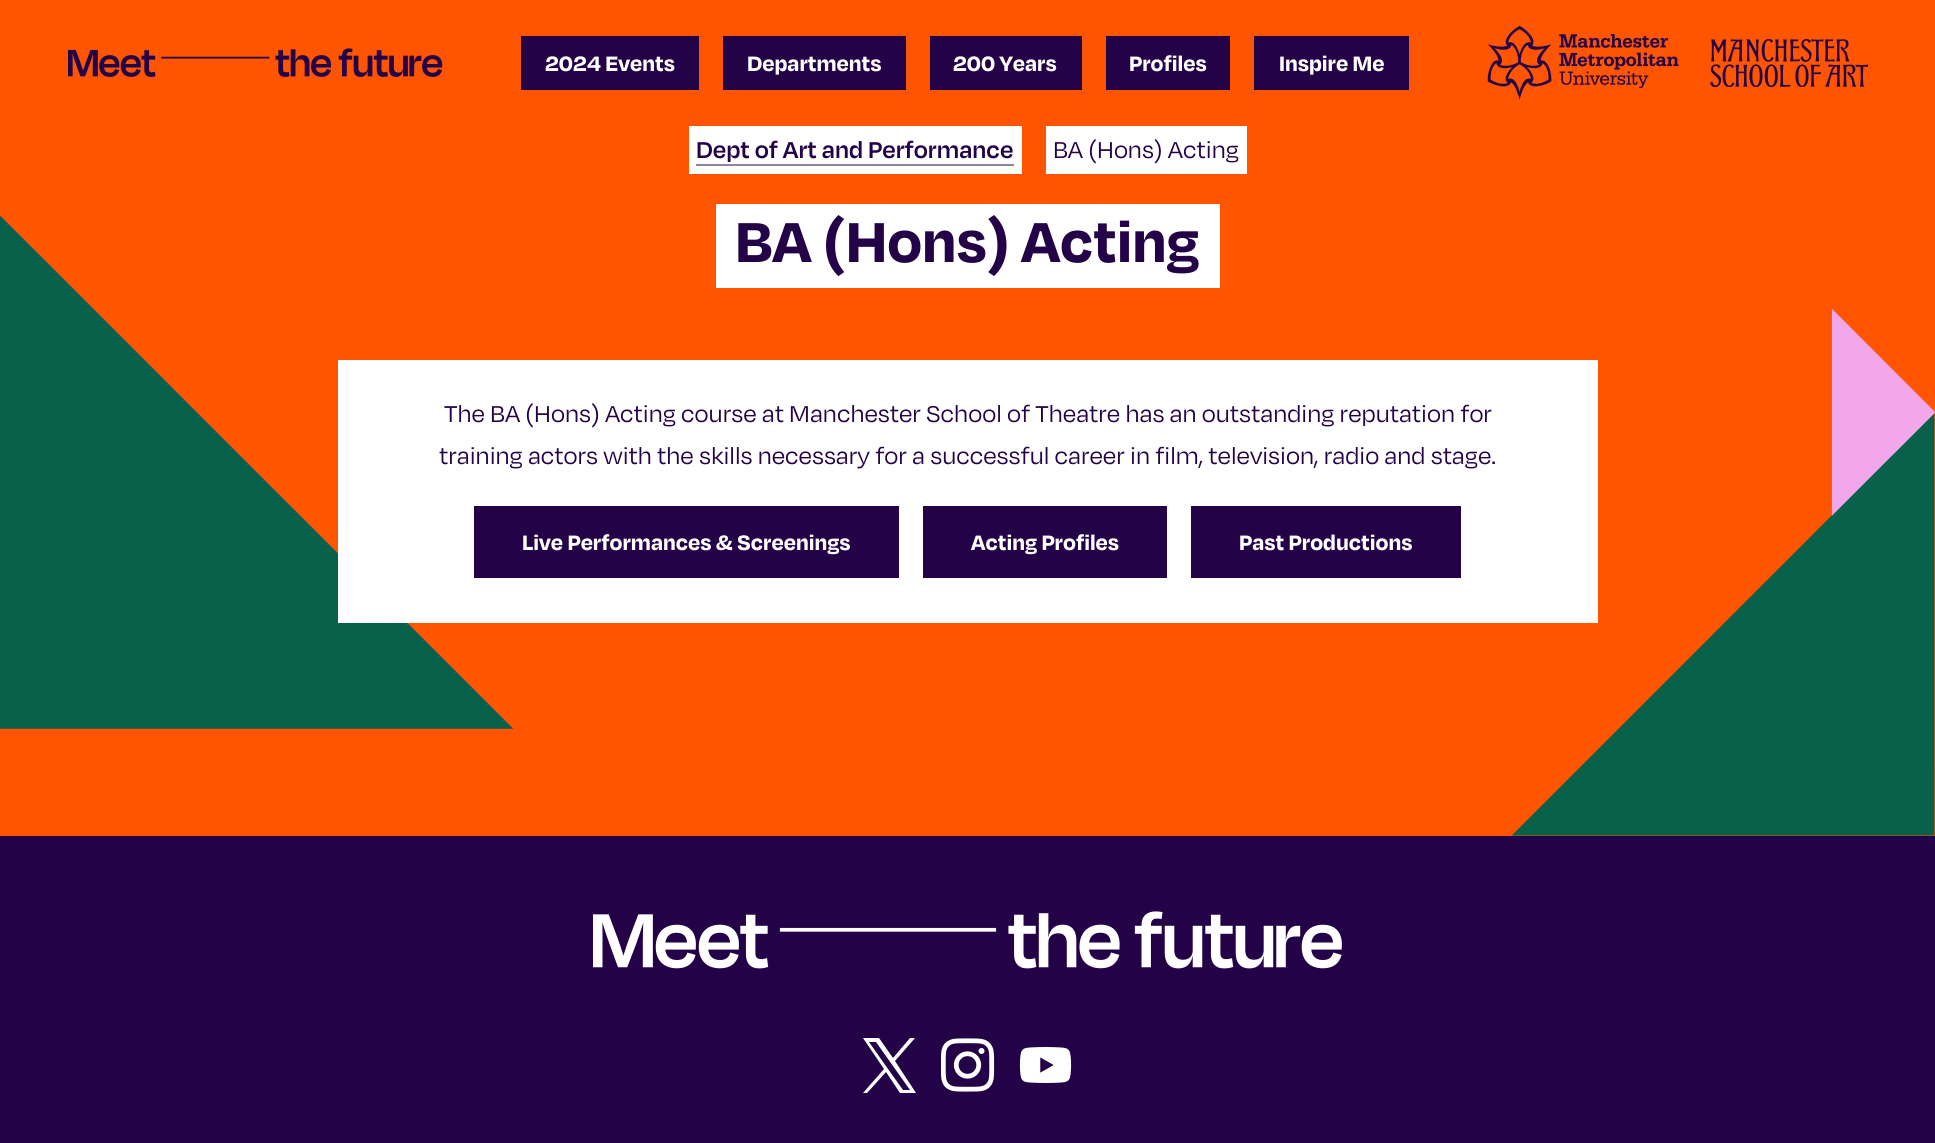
#include <cairo.h>
#include <math.h>
#include <stddef.h>


static void rgb(cairo_t *cr, int r, int g, int b)
{
	cairo_set_source_rgb(cr, r / 255.0, g / 255.0, b / 255.0);
}

static void face(cairo_t *cr, const char *family, double size, int italic, int bold)
{
	cairo_select_font_face(cr, family, italic ? CAIRO_FONT_SLANT_ITALIC : CAIRO_FONT_SLANT_NORMAL,
		bold ? CAIRO_FONT_WEIGHT_BOLD : CAIRO_FONT_WEIGHT_NORMAL);
	cairo_set_font_size(cr, size);
}

static void label(cairo_t *cr, double x, double y, const char *s)
{
	cairo_move_to(cr, x, y);
	cairo_show_text(cr, s);
}

static void rect(cairo_t *cr, double x, double y, double w, double h)
{
	cairo_rectangle(cr, x, y, w, h);
	cairo_fill(cr);
}

static void image(cairo_t *cr, const char *path, double x, double y, double w, double h)
{
	cairo_surface_t *image = cairo_image_surface_create_from_png(path);
	cairo_save(cr);
	cairo_set_source_surface(cr, image, x, y);
	cairo_rectangle(cr, x, y, w, h);
	cairo_fill(cr);
	cairo_restore(cr);
	cairo_surface_destroy(image);
}

static void draw(cairo_t *cr) {
	rgb(cr, 255, 85, 0);
	cairo_paint(cr);
	image(cr, "image0.png", 68, 48, 375, 29);
	rgb(cr, 36, 2, 71);
	rect(cr, 521, 36, 178, 54);
	face(cr, "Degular", 24, 0, 1);
	rgb(cr, 255, 255, 255);
	label(cr, 545, 71, "2024 Events");
	rgb(cr, 36, 2, 71);
	rect(cr, 723, 36, 183, 54);
	rgb(cr, 255, 255, 255);
	label(cr, 747, 71, "Departments");
	rgb(cr, 36, 2, 71);
	rect(cr, 930, 36, 152, 54);
	rgb(cr, 255, 255, 255);
	label(cr, 953, 71, "200 Years");
	rgb(cr, 36, 2, 71);
	rect(cr, 1106, 36, 124, 54);
	rgb(cr, 255, 255, 255);
	label(cr, 1129, 71, "Profiles");
	rgb(cr, 36, 2, 71);
	rect(cr, 1254, 36, 155, 54);
	rgb(cr, 255, 255, 255);
	label(cr, 1279, 71, "Inspire Me");
	image(cr, "image1.png", 1487, 26, 192, 74);
	image(cr, "image2.png", 1710, 39, 158, 48);
	rect(cr, 689, 126, 333, 48);
	face(cr, "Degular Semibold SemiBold", 26.4, 0, 0);
	rgb(cr, 36, 2, 71);
	label(cr, 696, 158, "Dept of Art and Performance");
	rgb(cr, 146, 129, 163);
	rect(cr, 696, 164, 318, 2);
	rgb(cr, 255, 255, 255);
	rect(cr, 1046, 126, 201, 48);
	face(cr, "Degular", 26.4, 0, 0);
	rgb(cr, 36, 2, 71);
	label(cr, 1053, 158, "BA (Hons) Acting");
	image(cr, "image3.png", 0, 215, 1935, 621);
	rgb(cr, 255, 255, 255);
	rect(cr, 716, 204, 504, 84);
	face(cr, "Degular", 64.75, 0, 1);
	rgb(cr, 36, 2, 71);
	label(cr, 735, 262, "BA (Hons) Acting");
	rgb(cr, 255, 255, 255);
	rect(cr, 338, 360, 1260, 263);
	face(cr, "Degular", 26.4, 0, 0);
	rgb(cr, 36, 2, 71);
	label(cr, 444, 422, "The BA (Hons) Acting course at Manchester School of Theatre has an outstanding reputation for");
	label(cr, 439, 464, "training actors with the skills necessary for a successful career in film, television, radio and stage.");
	rect(cr, 474, 506, 425, 72);
	face(cr, "Degular", 24, 0, 1);
	rgb(cr, 255, 255, 255);
	label(cr, 522, 550, "Live Performances & Screenings");
	rgb(cr, 36, 2, 71);
	rect(cr, 923, 506, 244, 72);
	rgb(cr, 255, 255, 255);
	label(cr, 971, 550, "Acting Profiles");
	rgb(cr, 36, 2, 71);
	rect(cr, 1191, 506, 270, 72);
	rgb(cr, 255, 255, 255);
	label(cr, 1239, 550, "Past Productions");
	rgb(cr, 36, 2, 71);
	rect(cr, 0, 836, 1935, 307);
	image(cr, "image4.png", 593, 911, 749, 58);
	rgb(cr, 255, 255, 255);
	cairo_set_fill_rule(cr, CAIRO_FILL_RULE_EVEN_ODD);
	cairo_new_path(cr);
	cairo_move_to(cr, 895, 1061);
	cairo_line_to(cr, 915, 1038);
	cairo_line_to(cr, 910, 1038);
	cairo_line_to(cr, 893, 1058);
	cairo_line_to(cr, 879, 1038);
	cairo_line_to(cr, 863, 1038);
	cairo_line_to(cr, 884, 1069);
	cairo_line_to(cr, 863, 1093);
	cairo_line_to(cr, 867, 1093);
	cairo_line_to(cr, 886, 1072);
	cairo_line_to(cr, 900, 1093);
	cairo_line_to(cr, 916, 1093);
	cairo_close_path(cr);
	cairo_move_to(cr, 888, 1069);
	cairo_line_to(cr, 903, 1090);
	cairo_line_to(cr, 910, 1090);
	cairo_line_to(cr, 876, 1042);
	cairo_line_to(cr, 869, 1042);
	cairo_close_path(cr);
	cairo_fill(cr);
	image(cr, "image5.png", 941, 1038, 54, 54);
	image(cr, "image6.png", 1019, 1047, 53, 36);
}

int main(void) {
	cairo_surface_t *surface = cairo_image_surface_create(CAIRO_FORMAT_RGB24, 1935, 1143);
	cairo_t *cr = cairo_create(surface);
	cairo_font_options_t *options = cairo_font_options_create();
	cairo_font_options_set_hint_metrics(options, CAIRO_HINT_METRICS_OFF);
	cairo_font_options_set_hint_style(options, CAIRO_HINT_STYLE_NONE);
	cairo_set_font_options(cr, options);
	cairo_set_miter_limit(cr, 4);
	draw(cr);
	cairo_surface_write_to_png(surface, "render.png");
	cairo_font_options_destroy(options);
	cairo_destroy(cr);
	cairo_surface_destroy(surface);
	return 0;
}
